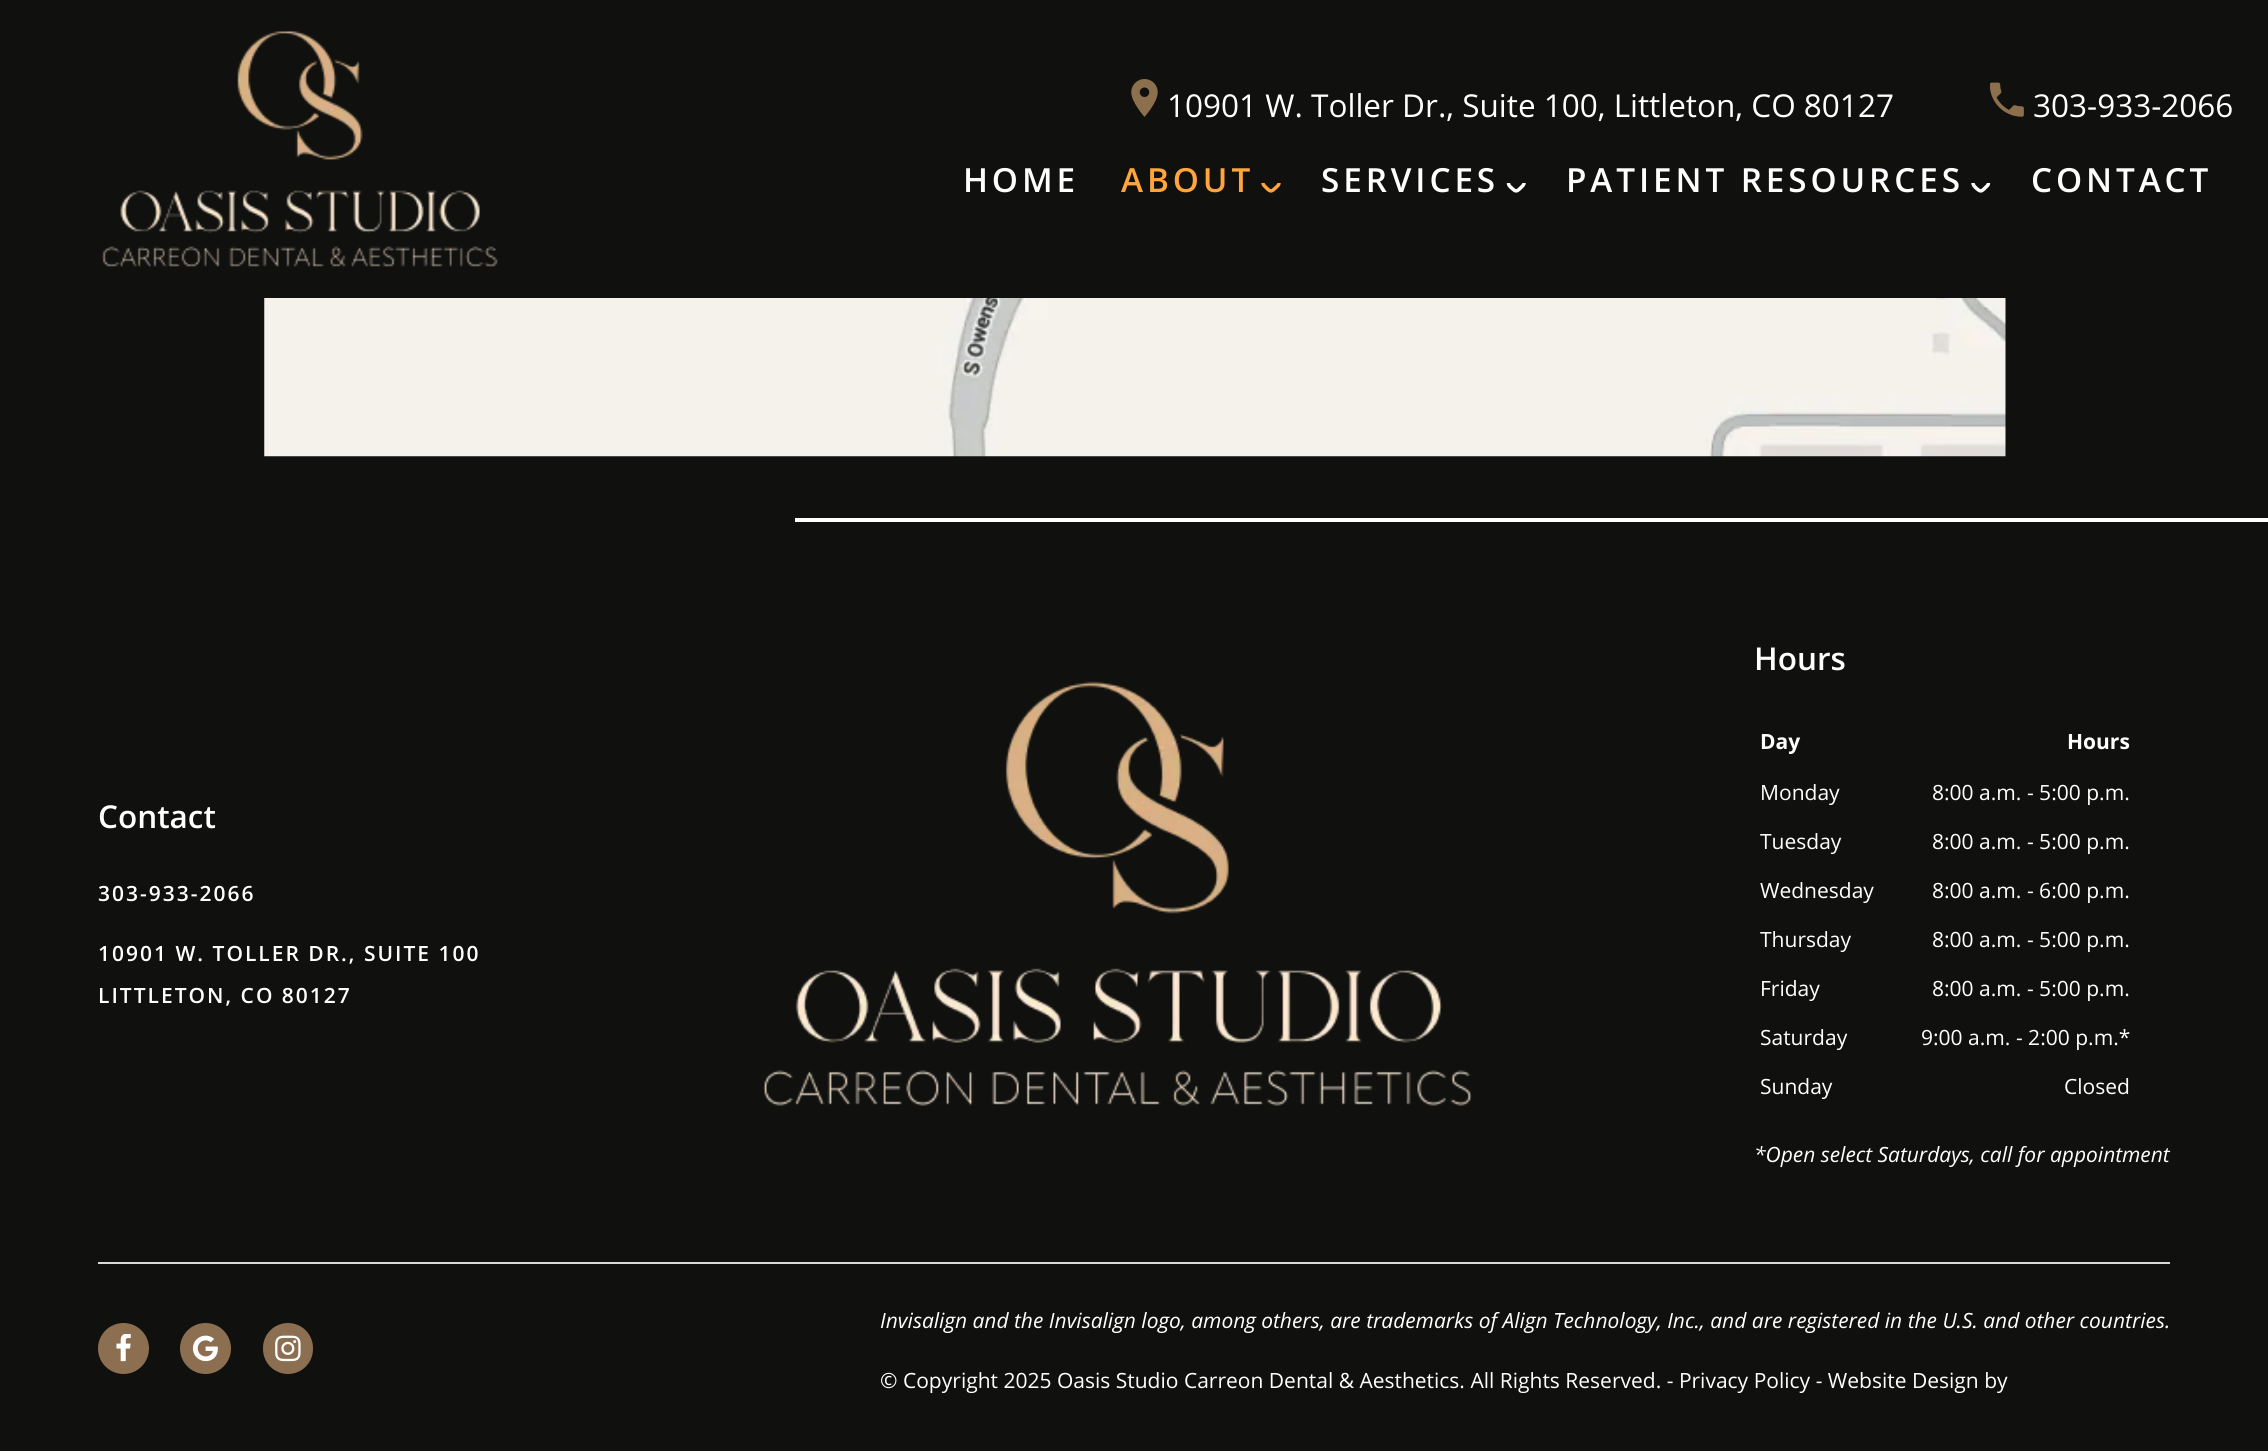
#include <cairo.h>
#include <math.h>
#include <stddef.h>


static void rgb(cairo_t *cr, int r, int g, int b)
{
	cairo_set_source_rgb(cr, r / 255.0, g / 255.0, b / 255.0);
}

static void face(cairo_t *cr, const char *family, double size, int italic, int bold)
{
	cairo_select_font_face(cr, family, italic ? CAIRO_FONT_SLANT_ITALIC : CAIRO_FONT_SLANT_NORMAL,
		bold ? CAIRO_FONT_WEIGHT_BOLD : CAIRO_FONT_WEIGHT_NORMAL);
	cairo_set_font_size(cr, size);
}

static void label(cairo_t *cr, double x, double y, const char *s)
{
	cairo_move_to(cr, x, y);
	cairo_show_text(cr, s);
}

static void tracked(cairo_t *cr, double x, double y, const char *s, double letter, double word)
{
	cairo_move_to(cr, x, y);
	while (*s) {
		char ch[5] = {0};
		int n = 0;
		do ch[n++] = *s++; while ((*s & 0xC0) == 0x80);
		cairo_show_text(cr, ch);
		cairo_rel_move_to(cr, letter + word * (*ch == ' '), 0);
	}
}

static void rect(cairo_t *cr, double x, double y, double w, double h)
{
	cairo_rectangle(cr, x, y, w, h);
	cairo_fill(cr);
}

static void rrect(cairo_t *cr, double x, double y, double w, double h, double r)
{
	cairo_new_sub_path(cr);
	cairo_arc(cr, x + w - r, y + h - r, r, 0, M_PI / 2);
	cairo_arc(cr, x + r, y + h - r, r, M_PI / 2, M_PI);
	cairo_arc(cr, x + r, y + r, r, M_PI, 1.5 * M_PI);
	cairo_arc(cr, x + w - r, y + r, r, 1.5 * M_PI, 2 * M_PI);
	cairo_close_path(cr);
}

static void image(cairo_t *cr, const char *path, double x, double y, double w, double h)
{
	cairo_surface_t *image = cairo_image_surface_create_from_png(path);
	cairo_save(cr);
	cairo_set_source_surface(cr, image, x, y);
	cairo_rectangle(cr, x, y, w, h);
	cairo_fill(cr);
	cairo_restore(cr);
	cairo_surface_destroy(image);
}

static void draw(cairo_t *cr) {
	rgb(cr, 16, 16, 14);
	cairo_paint(cr);
	image(cr, "image0.png", 101, 31, 397, 237);
	image(cr, "image1.png", 1131, 79, 27, 38);
	face(cr, "Open Sans", 31.5, 0, 0);
	rgb(cr, 255, 255, 255);
	label(cr, 1167, 117, "10901 W. Toller Dr., Suite 100, Littleton, CO 80127");
	image(cr, "image2.png", 1990, 82, 34, 35);
	label(cr, 2033, 117, "303-933-2066");
	face(cr, "Open Sans SemiBold", 33.25, 0, 0);
	tracked(cr, 963, 192, "HOME", 3.9, 0);
	rgb(cr, 255, 165, 60);
	tracked(cr, 1121, 192, "ABOUT", 3.9, 0);
	cairo_new_path(cr);
	cairo_move_to(cr, 1279, 183);
	cairo_curve_to(cr, 1279, 185, 1277.5, 186, 1276.5, 187);
	cairo_curve_to(cr, 1271.5, 191.5, 1271, 192.5, 1266.5, 188);
	cairo_curve_to(cr, 1265, 186.5, 1263, 185, 1263, 183);
	cairo_set_line_width(cr, 3.5);
	cairo_stroke(cr);
	rgb(cr, 255, 255, 255);
	tracked(cr, 1321, 192, "SERVICES", 3.9, 0);
	cairo_new_path(cr);
	cairo_move_to(cr, 1524, 183);
	cairo_curve_to(cr, 1524, 185, 1522, 186.5, 1520.5, 188);
	cairo_curve_to(cr, 1516, 192.5, 1515.5, 191.5, 1510.5, 187);
	cairo_curve_to(cr, 1509.5, 186, 1508.5, 185, 1508.5, 183);
	cairo_stroke(cr);
	tracked(cr, 1566, 192, "PATIENT RESOURCES", 3.9, 0);
	cairo_new_path(cr);
	cairo_move_to(cr, 1988.5, 183);
	cairo_curve_to(cr, 1988.5, 185, 1987, 186, 1986, 187);
	cairo_curve_to(cr, 1981.5, 191.5, 1981, 192.5, 1976, 188);
	cairo_curve_to(cr, 1974.5, 186.5, 1973, 185, 1973, 183);
	cairo_stroke(cr);
	tracked(cr, 2031, 192, "CONTACT", 3.9, 0);
	image(cr, "image3.png", 264, 298, 1742, 159);
	rect(cr, 795, 518, 1473, 4);
	rgb(cr, 216, 218, 219);
	rect(cr, 98, 1262, 2072, 2);
	face(cr, "Open Sans SemiBold", 31.5, 0, 0);
	rgb(cr, 255, 255, 255);
	label(cr, 98, 828, "Contact");
	face(cr, "Open Sans SemiBold", 21, 0, 0);
	tracked(cr, 98, 901, "303-933-2066", 2, 0);
	tracked(cr, 98, 961, "10901 W. TOLLER DR., SUITE 100", 2, 0);
	tracked(cr, 98, 1003, "LITTLETON, CO 80127", 2, 0);
	image(cr, "image4.png", 763, 681, 709, 425);
	face(cr, "Open Sans SemiBold", 31.5, 0, 0);
	label(cr, 1754, 670, "Hours");
	face(cr, "Open Sans", 21, 0, 1);
	label(cr, 1760, 749, "Day");
	label(cr, 2067, 749, "Hours");
	face(cr, "Open Sans", 21, 0, 0);
	label(cr, 1760, 800, "Monday");
	label(cr, 1932, 800, "8:00 a.m. - 5:00 p.m.");
	label(cr, 1760, 849, "Tuesday");
	label(cr, 1932, 849, "8:00 a.m. - 5:00 p.m.");
	label(cr, 1760, 898, "Wednesday");
	label(cr, 1932, 898, "8:00 a.m. - 6:00 p.m.");
	label(cr, 1760, 947, "Thursday");
	label(cr, 1932, 947, "8:00 a.m. - 5:00 p.m.");
	label(cr, 1760, 996, "Friday");
	label(cr, 1932, 996, "8:00 a.m. - 5:00 p.m.");
	label(cr, 1760, 1045, "Saturday");
	label(cr, 1921, 1045, "9:00 a.m. - 2:00 p.m.*");
	label(cr, 1760, 1094, "Sunday");
	label(cr, 2064, 1094, "Closed");
	face(cr, "Open Sans", 21, 1, 0);
	label(cr, 1754, 1162, "*Open select Saturdays, call for appointment");
	rgb(cr, 140, 111, 80);
	cairo_new_path(cr);
	cairo_arc(cr, 123.5, 1348.5, 25.5, 0, 2 * M_PI);
	cairo_fill(cr);
	image(cr, "image5.png", 116, 1334, 15, 28);
	cairo_arc(cr, 205.5, 1348.5, 25.5, 0, 2 * M_PI);
	cairo_fill(cr);
	image(cr, "image6.png", 192, 1335, 26, 27);
	rrect(cr, 263, 1323, 50, 51, 25);
	cairo_fill(cr);
	image(cr, "image7.png", 275, 1335, 26, 27);
	rgb(cr, 255, 255, 255);
	label(cr, 880, 1328, "Invisalign and the Invisalign logo, among others, are trademarks of Align Technology, Inc., and are registered in the U.S. and other countries.");
	face(cr, "Open Sans", 21, 0, 0);
	label(cr, 880, 1388, "© Copyright 2025 Oasis Studio Carreon Dental & Aesthetics. All Rights Reserved. - Privacy Policy - Website Design by");
}

int main(void) {
	cairo_surface_t *surface = cairo_image_surface_create(CAIRO_FORMAT_RGB24, 2268, 1451);
	cairo_t *cr = cairo_create(surface);
	cairo_font_options_t *options = cairo_font_options_create();
	cairo_font_options_set_hint_metrics(options, CAIRO_HINT_METRICS_OFF);
	cairo_font_options_set_hint_style(options, CAIRO_HINT_STYLE_NONE);
	cairo_set_font_options(cr, options);
	cairo_set_miter_limit(cr, 4);
	draw(cr);
	cairo_surface_write_to_png(surface, "render.png");
	cairo_font_options_destroy(options);
	cairo_destroy(cr);
	cairo_surface_destroy(surface);
	return 0;
}
